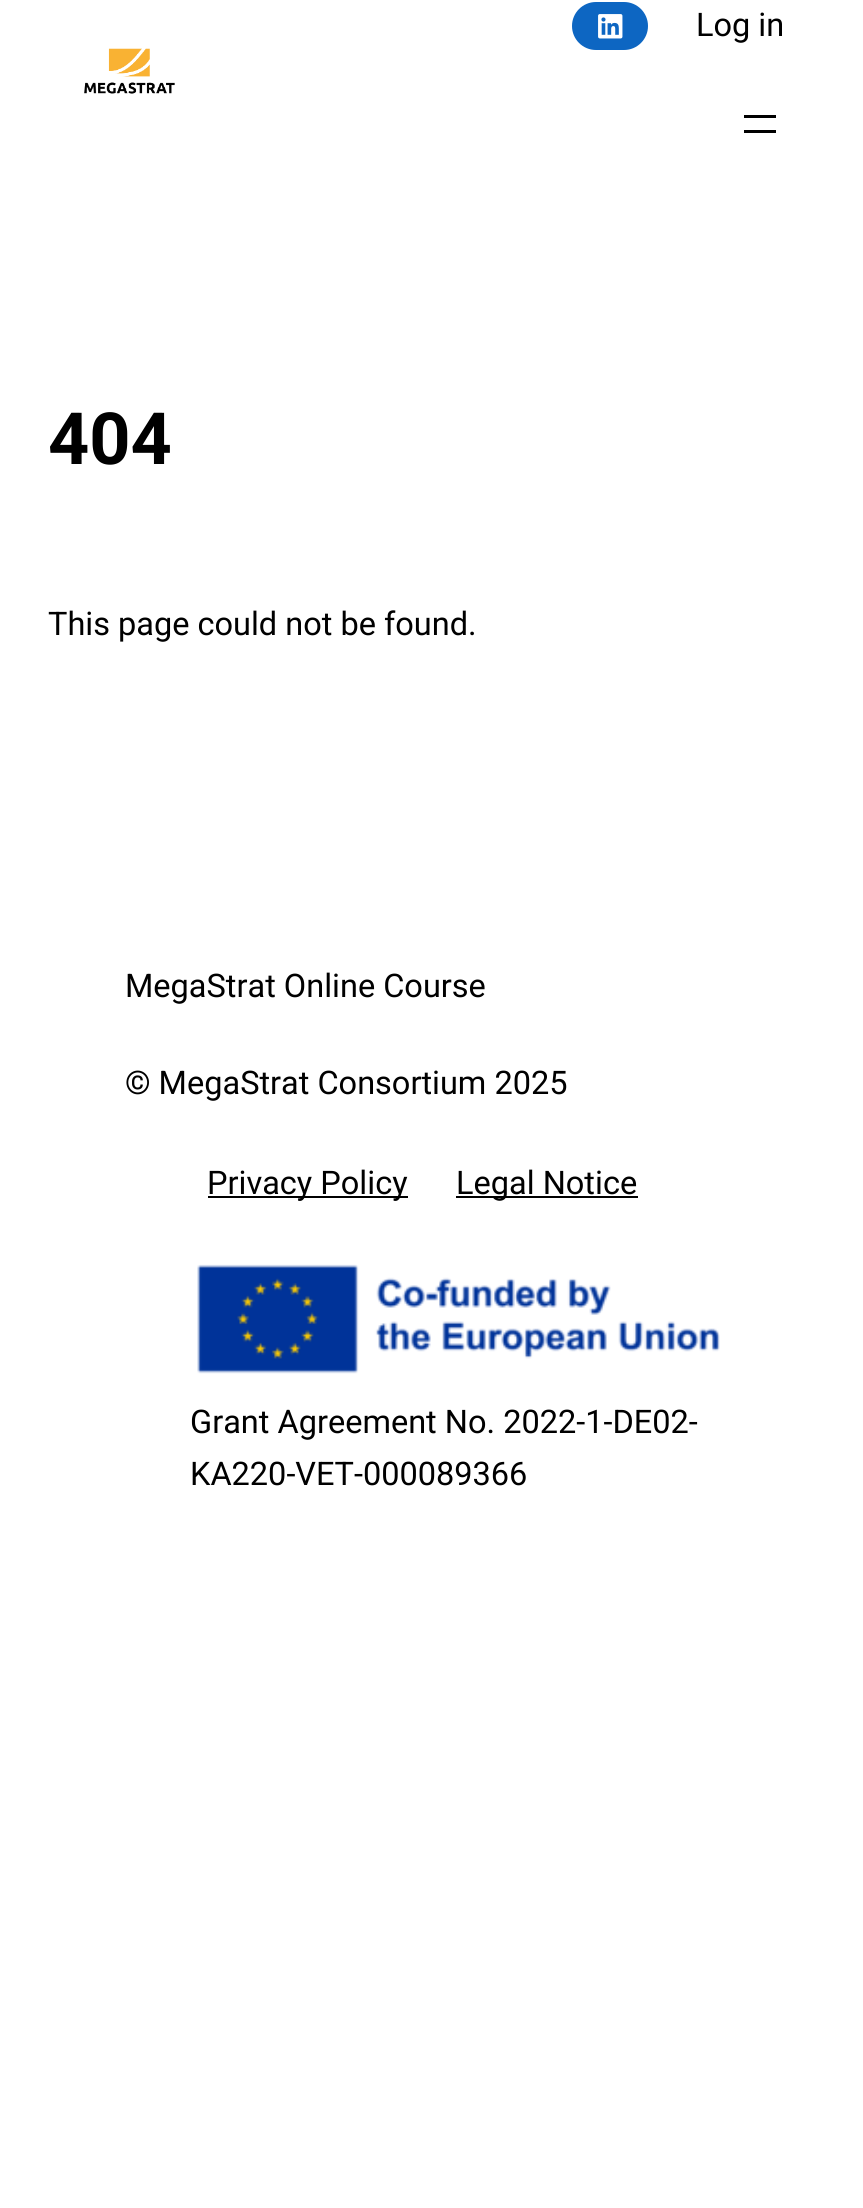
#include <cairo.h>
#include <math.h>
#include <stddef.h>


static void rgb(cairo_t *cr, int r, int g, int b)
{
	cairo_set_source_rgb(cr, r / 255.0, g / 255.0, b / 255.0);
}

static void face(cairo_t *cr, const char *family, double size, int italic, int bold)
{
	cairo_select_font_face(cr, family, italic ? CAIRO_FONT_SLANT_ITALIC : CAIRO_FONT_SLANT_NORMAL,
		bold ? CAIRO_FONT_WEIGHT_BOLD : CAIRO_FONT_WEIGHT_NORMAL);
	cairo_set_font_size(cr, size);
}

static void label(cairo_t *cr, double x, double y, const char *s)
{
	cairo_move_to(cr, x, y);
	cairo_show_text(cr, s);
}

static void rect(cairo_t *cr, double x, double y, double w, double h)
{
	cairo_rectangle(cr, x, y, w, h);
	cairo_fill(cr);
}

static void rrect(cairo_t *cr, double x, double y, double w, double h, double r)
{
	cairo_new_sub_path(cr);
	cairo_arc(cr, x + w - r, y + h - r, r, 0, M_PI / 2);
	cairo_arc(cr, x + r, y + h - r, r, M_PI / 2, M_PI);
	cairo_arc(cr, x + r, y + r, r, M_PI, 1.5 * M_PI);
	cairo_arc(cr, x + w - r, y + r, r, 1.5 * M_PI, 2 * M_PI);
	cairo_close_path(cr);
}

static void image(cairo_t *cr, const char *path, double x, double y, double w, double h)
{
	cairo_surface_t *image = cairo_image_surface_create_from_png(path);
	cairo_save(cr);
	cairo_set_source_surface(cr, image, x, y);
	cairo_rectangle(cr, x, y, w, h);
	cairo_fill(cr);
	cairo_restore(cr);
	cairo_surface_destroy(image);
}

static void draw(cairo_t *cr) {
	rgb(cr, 255, 255, 255);
	cairo_paint(cr);
	rgb(cr, 13, 102, 194);
	rrect(cr, 572, 2, 76, 48, 24);
	cairo_fill(cr);
	image(cr, "image0.png", 598, 14, 25, 25);
	face(cr, "Roboto", 32.5, 0, 0);
	rgb(cr, 0, 0, 0);
	label(cr, 696, 36, "Log in");
	rect(cr, 744, 115, 32, 3);
	rect(cr, 744, 130, 32, 3);
	image(cr, "image1.png", 84, 48, 91, 46);
	face(cr, "Roboto", 72, 0, 1);
	label(cr, 48, 464, "404");
	face(cr, "Roboto", 32.5, 0, 0);
	label(cr, 48, 635, "This page could not be found.");
	label(cr, 125, 997, "MegaStrat Online Course");
	label(cr, 125, 1094, "© MegaStrat Consortium 2025");
	rect(cr, 208, 1196, 200, 2);
	label(cr, 207, 1194, "Privacy Policy");
	rect(cr, 456, 1196, 182, 2);
	label(cr, 456, 1194, "Legal Notice");
	image(cr, "image2.png", 197, 1264, 523, 110);
	label(cr, 190, 1433, "Grant Agreement No. 2022-1-DE02-");
	label(cr, 190, 1485, "KA220-VET-000089366");
}

int main(void) {
	cairo_surface_t *surface = cairo_image_surface_create(CAIRO_FORMAT_RGB24, 863, 2208);
	cairo_t *cr = cairo_create(surface);
	cairo_font_options_t *options = cairo_font_options_create();
	cairo_font_options_set_hint_metrics(options, CAIRO_HINT_METRICS_OFF);
	cairo_font_options_set_hint_style(options, CAIRO_HINT_STYLE_NONE);
	cairo_set_font_options(cr, options);
	cairo_set_miter_limit(cr, 4);
	draw(cr);
	cairo_surface_write_to_png(surface, "render.png");
	cairo_font_options_destroy(options);
	cairo_destroy(cr);
	cairo_surface_destroy(surface);
	return 0;
}
